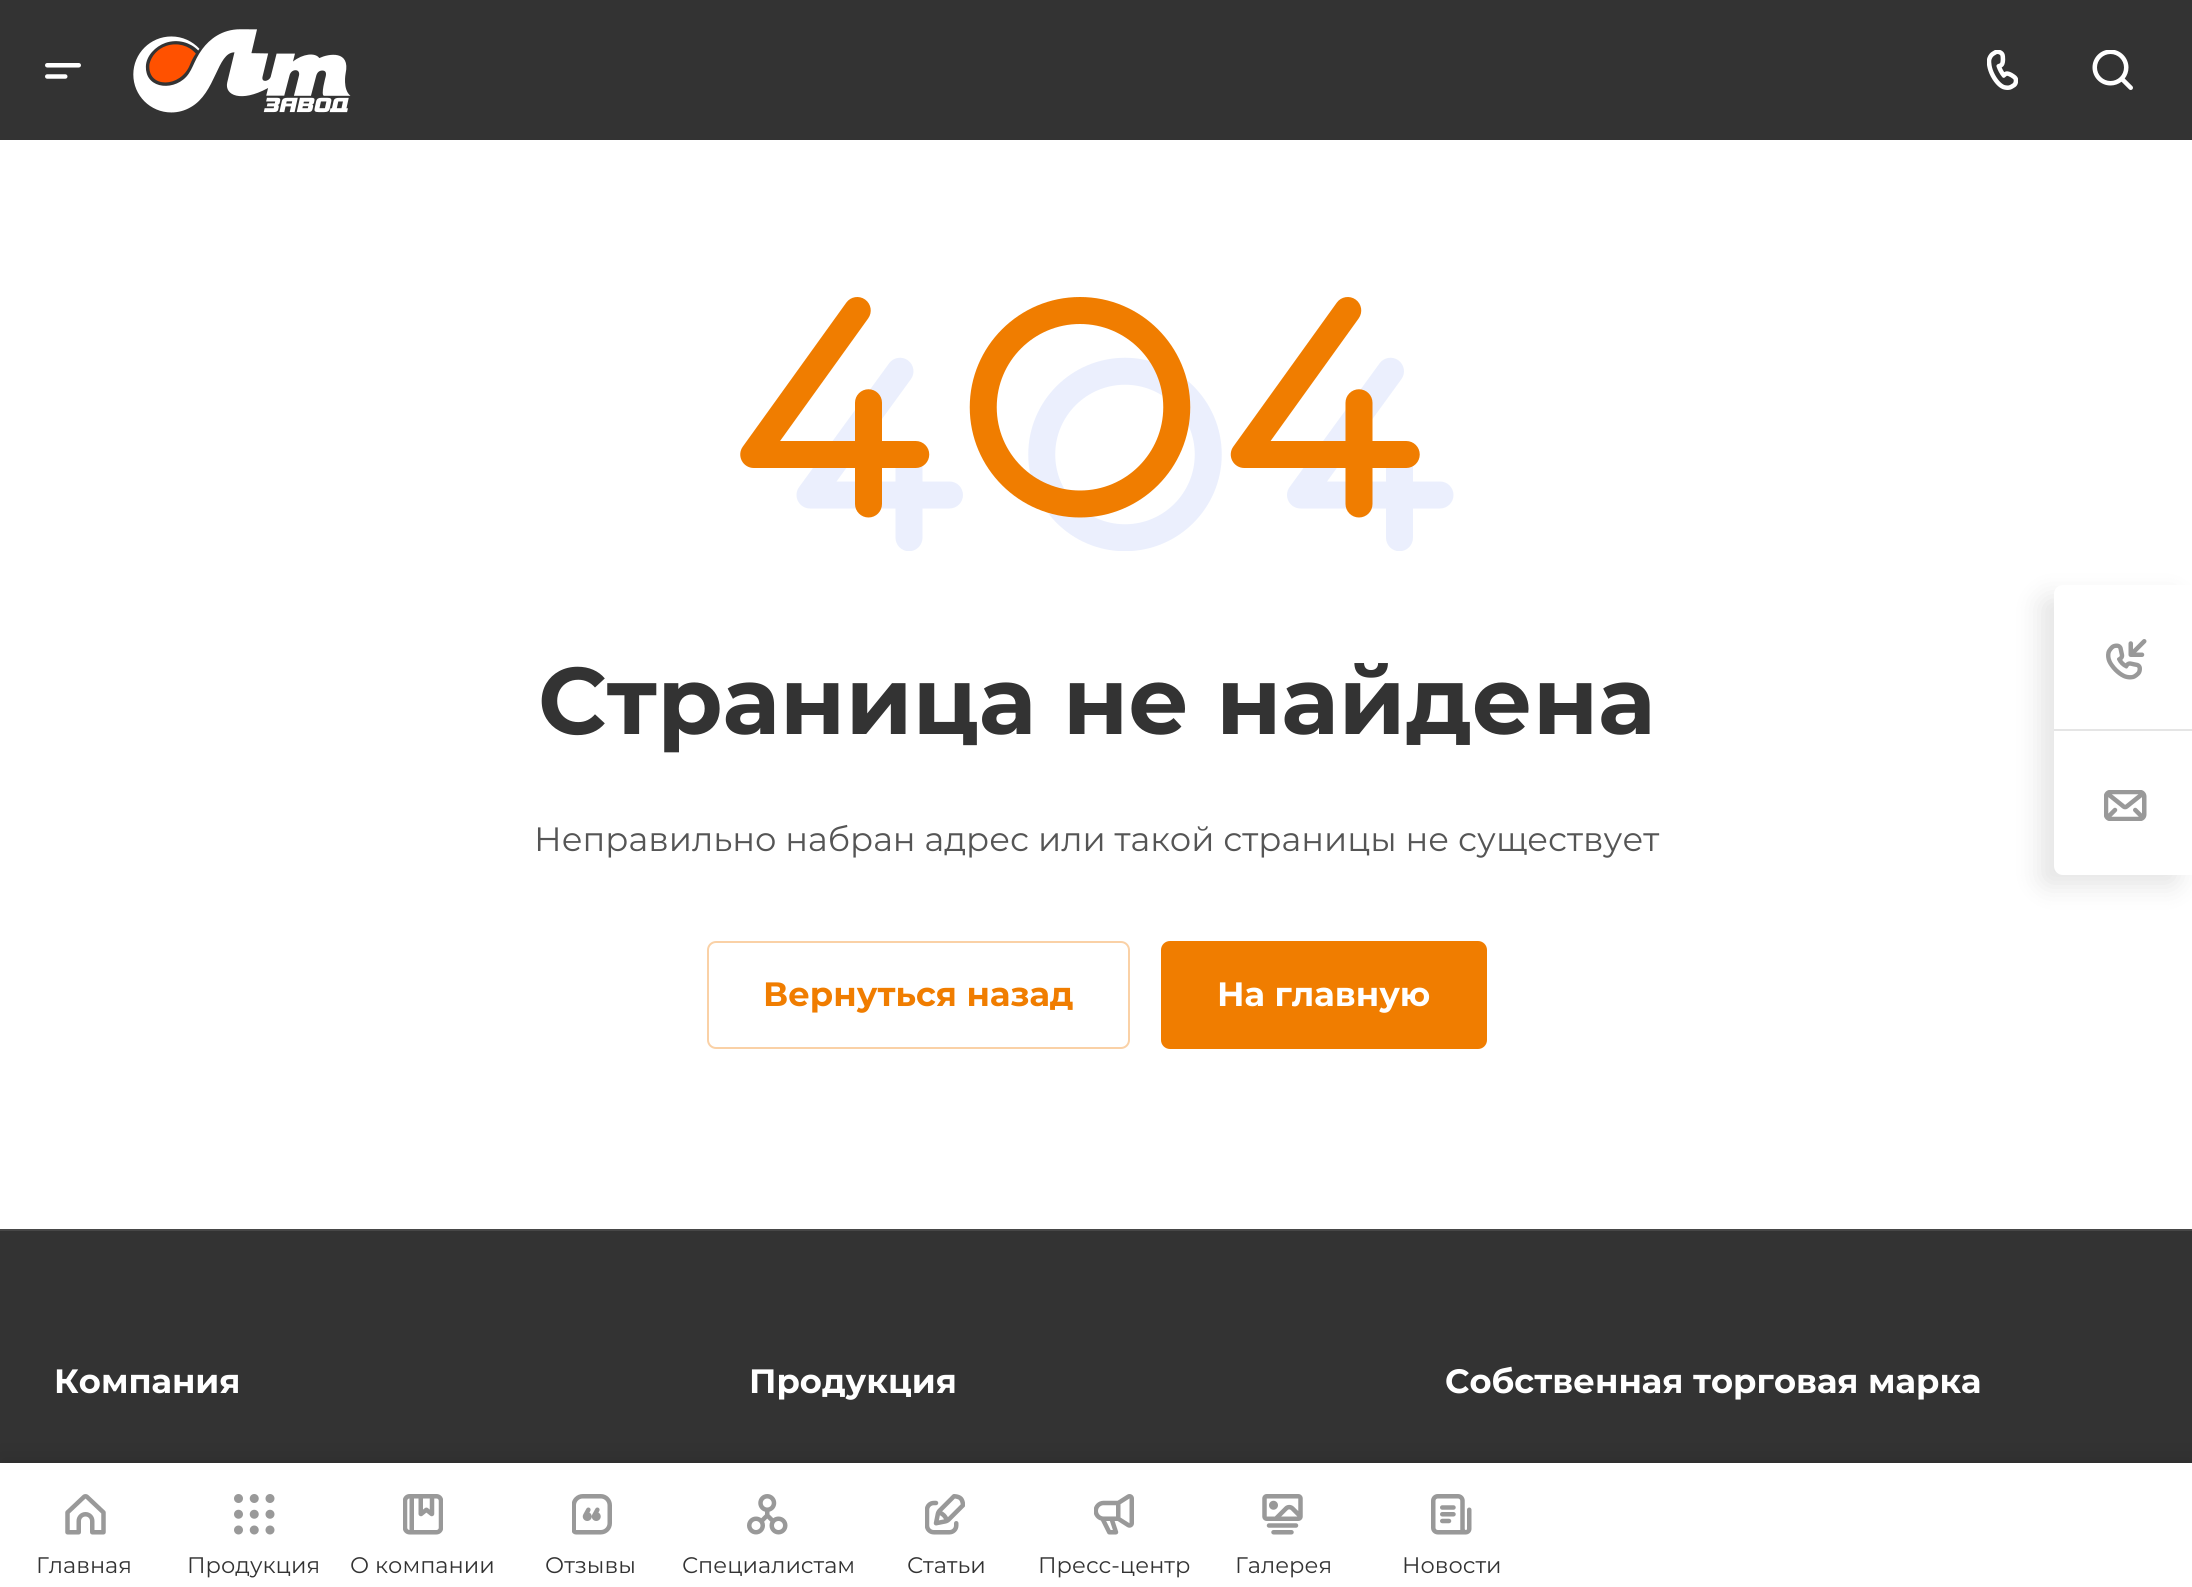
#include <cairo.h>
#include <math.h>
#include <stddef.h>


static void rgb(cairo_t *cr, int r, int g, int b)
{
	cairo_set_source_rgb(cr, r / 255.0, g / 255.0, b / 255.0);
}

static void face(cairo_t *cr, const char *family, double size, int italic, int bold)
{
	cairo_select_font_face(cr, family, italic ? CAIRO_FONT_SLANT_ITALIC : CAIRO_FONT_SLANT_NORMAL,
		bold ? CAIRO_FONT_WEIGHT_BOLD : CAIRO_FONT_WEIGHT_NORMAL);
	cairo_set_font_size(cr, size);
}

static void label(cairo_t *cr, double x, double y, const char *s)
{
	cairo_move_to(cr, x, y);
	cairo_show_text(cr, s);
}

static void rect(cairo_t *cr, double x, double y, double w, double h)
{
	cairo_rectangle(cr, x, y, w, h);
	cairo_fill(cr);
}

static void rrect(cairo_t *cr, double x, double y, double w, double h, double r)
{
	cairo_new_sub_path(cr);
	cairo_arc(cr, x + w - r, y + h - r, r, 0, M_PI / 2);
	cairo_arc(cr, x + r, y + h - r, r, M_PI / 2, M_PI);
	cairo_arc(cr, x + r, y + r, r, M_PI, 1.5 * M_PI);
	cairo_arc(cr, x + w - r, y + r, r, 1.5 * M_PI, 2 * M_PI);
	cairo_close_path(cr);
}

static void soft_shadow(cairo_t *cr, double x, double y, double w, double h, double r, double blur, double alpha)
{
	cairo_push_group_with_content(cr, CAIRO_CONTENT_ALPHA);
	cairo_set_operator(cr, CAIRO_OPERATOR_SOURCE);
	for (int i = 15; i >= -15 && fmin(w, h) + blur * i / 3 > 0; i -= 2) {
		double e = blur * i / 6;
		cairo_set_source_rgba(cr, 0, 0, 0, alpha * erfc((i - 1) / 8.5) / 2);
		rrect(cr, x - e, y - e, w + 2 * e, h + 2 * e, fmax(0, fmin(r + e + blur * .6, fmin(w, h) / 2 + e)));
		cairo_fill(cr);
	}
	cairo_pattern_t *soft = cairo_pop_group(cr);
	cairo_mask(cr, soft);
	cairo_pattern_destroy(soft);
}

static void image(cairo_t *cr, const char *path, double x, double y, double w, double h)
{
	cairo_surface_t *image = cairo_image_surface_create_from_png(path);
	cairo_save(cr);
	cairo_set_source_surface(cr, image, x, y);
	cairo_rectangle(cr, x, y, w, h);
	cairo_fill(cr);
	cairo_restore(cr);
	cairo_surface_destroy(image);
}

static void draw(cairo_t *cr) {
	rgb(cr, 255, 255, 255);
	cairo_paint(cr);
	rgb(cr, 51, 51, 51);
	rect(cr, 0, 0, 2192, 140);
	image(cr, "image0.png", 45, 63, 36, 16);
	image(cr, "image1.png", 133, 29, 218, 84);
	image(cr, "image2.png", 1987, 50, 31, 40);
	image(cr, "image3.png", 2092, 50, 41, 40);
	image(cr, "image4.png", 740, 297, 714, 254);
	face(cr, "Montserrat", 94.5, 0, 1);
	label(cr, 538, 734, "Страница не найдена");
	face(cr, "Montserrat", 33.75, 0, 0);
	rgb(cr, 85, 85, 85);
	label(cr, 534, 851, "Неправильно набран адрес или такой страницы не существует");
	rrect(cr, 708, 942, 421, 106, 8);
	rgb(cr, 250, 209, 166);
	cairo_stroke(cr);
	face(cr, "Montserrat", 33.75, 0, 1);
	rgb(cr, 240, 125, 0);
	label(cr, 763, 1006, "Вернуться назад");
	rrect(cr, 1162, 942, 324, 106, 8);
	cairo_fill_preserve(cr);
	cairo_stroke(cr);
	rgb(cr, 255, 255, 255);
	label(cr, 1217, 1006, "На главную");
	rgb(cr, 0, 0, 0);
	soft_shadow(cr, 2039, 596, 141, 291, 9, 12.5, 0.1);
	rgb(cr, 255, 255, 255);
	cairo_new_path(cr);
	cairo_move_to(cr, 2063, 585);
	cairo_line_to(cr, 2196, 585);
	cairo_line_to(cr, 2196, 875);
	cairo_line_to(cr, 2063, 875);
	cairo_curve_to(cr, 2058, 875, 2054, 871, 2054, 866);
	cairo_line_to(cr, 2054, 594);
	cairo_curve_to(cr, 2054, 589, 2058, 585, 2063, 585);
	cairo_close_path(cr);
	cairo_fill(cr);
	image(cr, "image5.png", 2106, 639, 41, 41);
	rgb(cr, 229, 229, 229);
	rect(cr, 2054, 729, 138, 2);
	image(cr, "image6.png", 2104, 790, 43, 31);
	rgb(cr, 51, 51, 51);
	rect(cr, 0, 1231, 2192, 232);
	rgb(cr, 71, 71, 71);
	rect(cr, 0, 1229, 2192, 2);
	rgb(cr, 255, 255, 255);
	label(cr, 54, 1393, "Компания");
	label(cr, 749, 1393, "Продукция");
	label(cr, 1445, 1393, "Собственная торговая марка");
	rgb(cr, 0, 0, 0);
	soft_shadow(cr, 0, 1456, 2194, 126, 0, 11, 0.1);
	rgb(cr, 255, 255, 255);
	rect(cr, 0, 1463, 2192, 124);
	image(cr, "image7.png", 65, 1494, 41, 41);
	face(cr, "Montserrat", 22.5, 0, 0);
	rgb(cr, 51, 51, 51);
	label(cr, 36, 1573, "Главная");
	image(cr, "image8.png", 234, 1494, 41, 41);
	label(cr, 187, 1573, "Продукция");
	image(cr, "image9.png", 403, 1494, 40, 41);
	label(cr, 350, 1573, "О компании");
	image(cr, "image10.png", 572, 1494, 40, 41);
	label(cr, 545, 1573, "Отзывы");
	image(cr, "image11.png", 747, 1494, 41, 41);
	label(cr, 682, 1573, "Специалистам");
	image(cr, "image12.png", 925, 1494, 40, 41);
	label(cr, 907, 1573, "Статьи");
	image(cr, "image13.png", 1094, 1494, 40, 41);
	label(cr, 1038, 1573, "Пресс-центр");
	image(cr, "image14.png", 1262, 1494, 41, 41);
	label(cr, 1235, 1573, "Галерея");
	image(cr, "image15.png", 1431, 1494, 41, 41);
	label(cr, 1402, 1573, "Новости");
}

int main(void) {
	cairo_surface_t *surface = cairo_image_surface_create(CAIRO_FORMAT_RGB24, 2192, 1587);
	cairo_t *cr = cairo_create(surface);
	cairo_font_options_t *options = cairo_font_options_create();
	cairo_font_options_set_hint_metrics(options, CAIRO_HINT_METRICS_OFF);
	cairo_font_options_set_hint_style(options, CAIRO_HINT_STYLE_NONE);
	cairo_set_font_options(cr, options);
	cairo_set_miter_limit(cr, 4);
	draw(cr);
	cairo_surface_write_to_png(surface, "render.png");
	cairo_font_options_destroy(options);
	cairo_destroy(cr);
	cairo_surface_destroy(surface);
	return 0;
}
